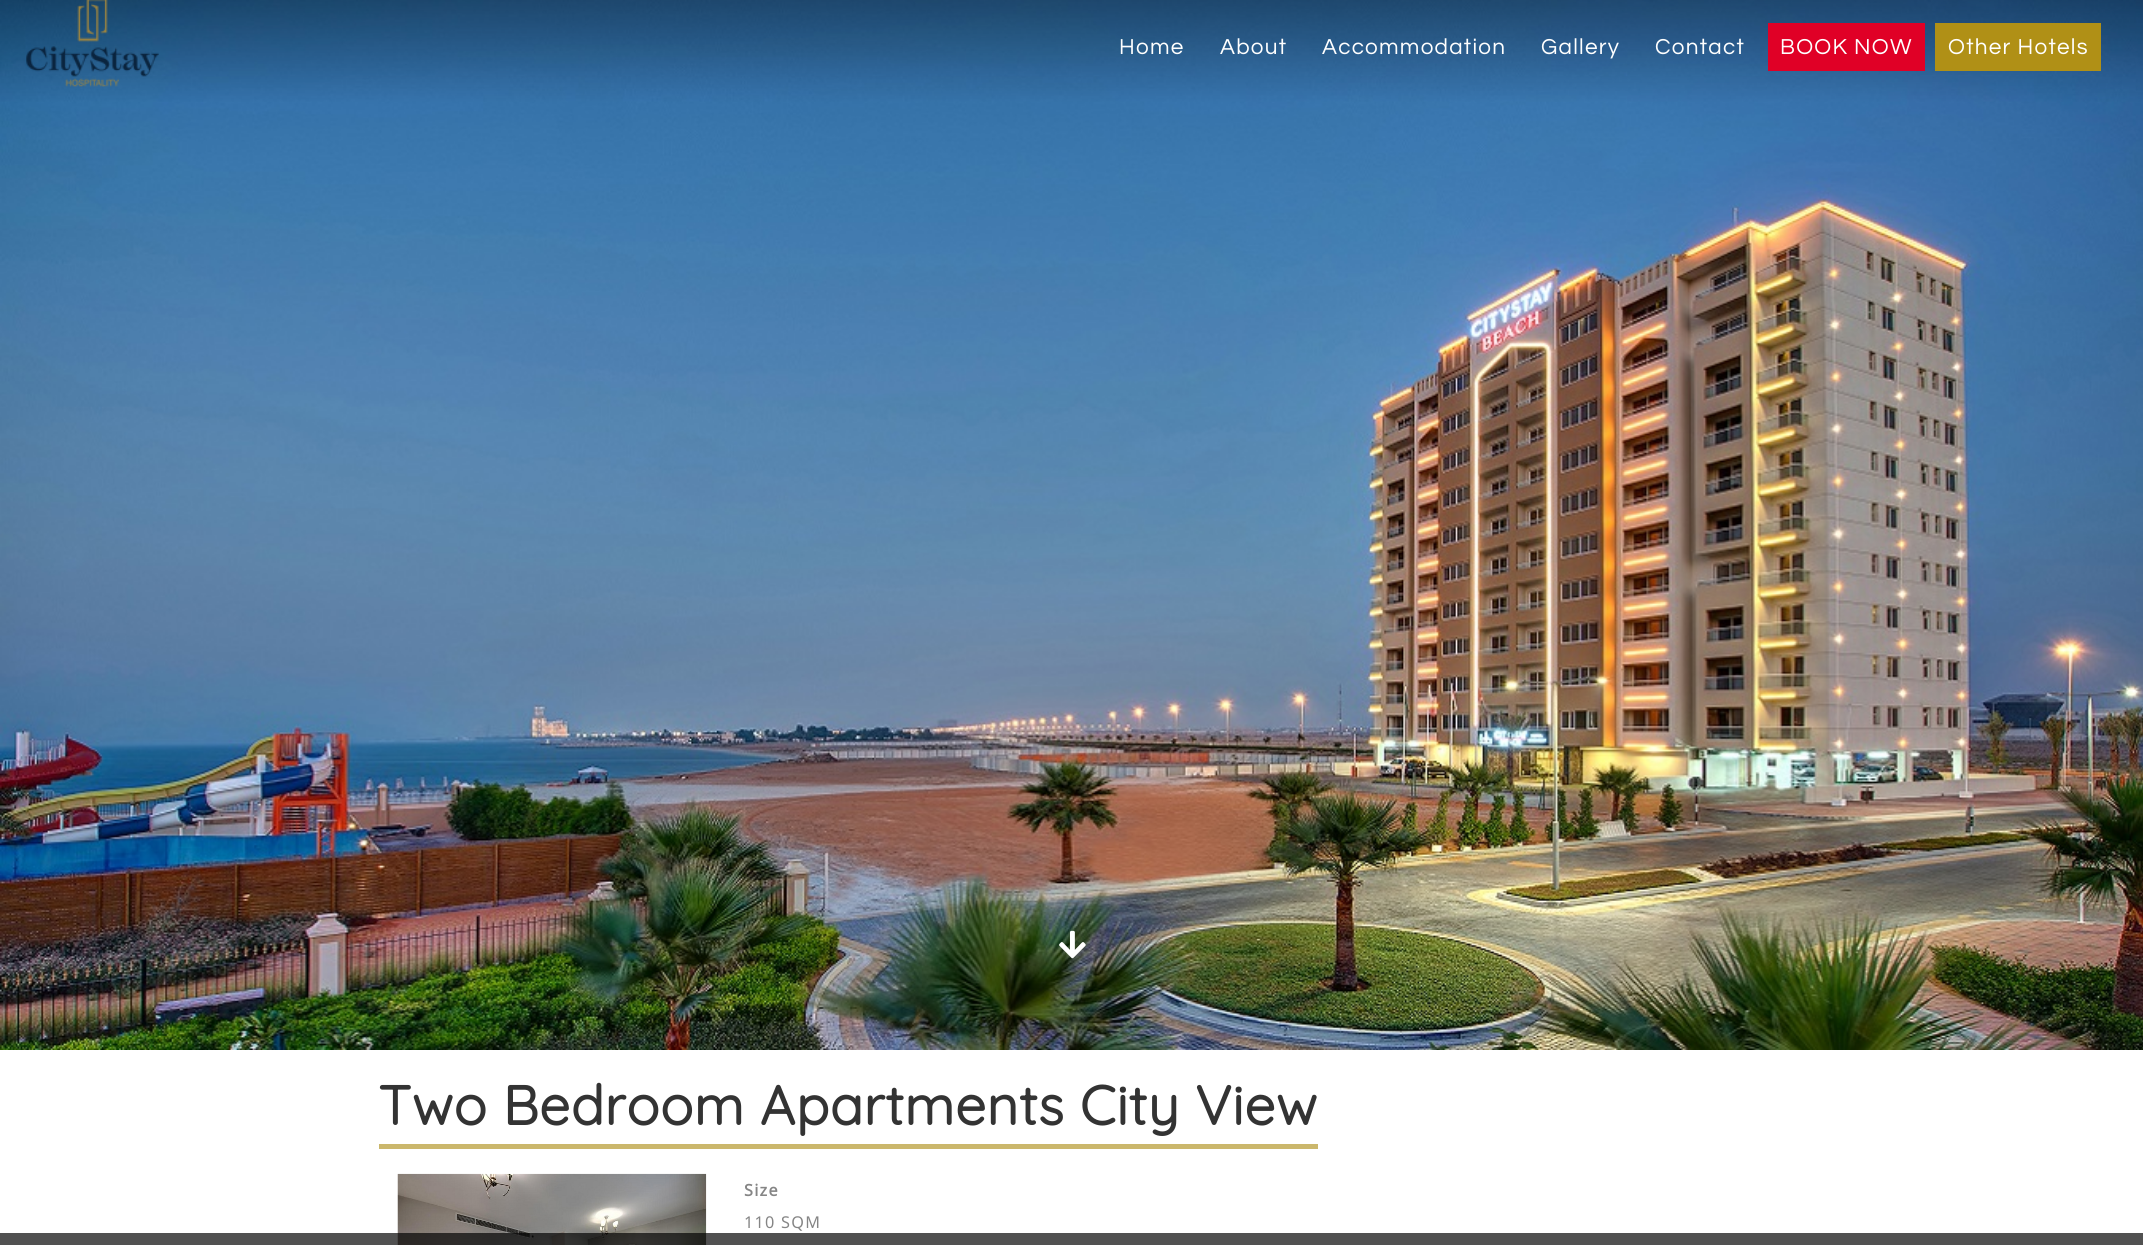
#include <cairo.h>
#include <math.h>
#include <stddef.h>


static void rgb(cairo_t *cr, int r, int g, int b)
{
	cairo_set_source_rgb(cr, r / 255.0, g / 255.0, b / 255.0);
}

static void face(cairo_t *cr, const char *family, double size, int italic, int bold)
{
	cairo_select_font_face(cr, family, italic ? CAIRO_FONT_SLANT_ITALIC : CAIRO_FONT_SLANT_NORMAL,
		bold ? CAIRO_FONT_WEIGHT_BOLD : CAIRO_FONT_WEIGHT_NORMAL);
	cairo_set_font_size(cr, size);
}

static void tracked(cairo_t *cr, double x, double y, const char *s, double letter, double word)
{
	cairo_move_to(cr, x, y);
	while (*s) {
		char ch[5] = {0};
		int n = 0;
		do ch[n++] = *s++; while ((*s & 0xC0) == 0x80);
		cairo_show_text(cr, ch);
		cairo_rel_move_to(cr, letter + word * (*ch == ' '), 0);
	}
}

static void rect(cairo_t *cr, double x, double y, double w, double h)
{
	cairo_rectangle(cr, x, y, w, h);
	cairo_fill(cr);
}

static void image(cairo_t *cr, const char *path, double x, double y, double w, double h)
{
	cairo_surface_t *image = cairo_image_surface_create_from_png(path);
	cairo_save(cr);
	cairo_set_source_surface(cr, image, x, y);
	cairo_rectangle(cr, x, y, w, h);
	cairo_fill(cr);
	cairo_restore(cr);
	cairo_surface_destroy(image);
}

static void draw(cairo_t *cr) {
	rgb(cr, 255, 255, 255);
	cairo_paint(cr);
	image(cr, "image1.png", 0, 0, 2143, 1050);
	image(cr, "image0.png", 26, 0, 133, 87);
	face(cr, "Questrial", 22.5, 0, 0);
	rgb(cr, 255, 255, 255);
	tracked(cr, 1119, 54, "Home", 1.25, 0);
	tracked(cr, 1220, 54, "About", 1.25, 0);
	tracked(cr, 1322, 54, "Accommodation", 1.25, 0);
	tracked(cr, 1541, 54, "Gallery", 1.25, 0);
	tracked(cr, 1655, 54, "Contact", 1.25, 0);
	rgb(cr, 224, 0, 38);
	rect(cr, 1768, 23, 157, 48);
	rgb(cr, 255, 255, 255);
	tracked(cr, 1780, 54, "BOOK NOW", 1.25, 0);
	rgb(cr, 176, 144, 22);
	rect(cr, 1935, 23, 166, 48);
	rgb(cr, 255, 255, 255);
	tracked(cr, 1948, 54, "Other Hotels", 1.25, 0);
	image(cr, "image2.png", 1059, 930, 27, 29);
	rgb(cr, 203, 183, 108);
	rect(cr, 379, 1144, 939, 5);
	face(cr, "Quicksand", 55, 0, 1);
	rgb(cr, 51, 51, 51);
	tracked(cr, 378, 1125, "Two Bedroom Apartments City View", 0.5, 0);
	image(cr, "image3.png", 397, 1173, 310, 72);
	face(cr, "Noto Sans", 16.25, 0, 1);
	rgb(cr, 133, 133, 133);
	tracked(cr, 744, 1196, "Size", 1.25, 0);
	face(cr, "Noto Sans", 16.25, 0, 0);
	tracked(cr, 744, 1228, "110 SQM", 1.25, 0);
	cairo_set_source_rgba(cr, 0, 0, 0, 0.68);
	rect(cr, 0, 1233, 2143, 12);
}

int main(void) {
	cairo_surface_t *surface = cairo_image_surface_create(CAIRO_FORMAT_RGB24, 2143, 1245);
	cairo_t *cr = cairo_create(surface);
	cairo_font_options_t *options = cairo_font_options_create();
	cairo_font_options_set_hint_metrics(options, CAIRO_HINT_METRICS_OFF);
	cairo_font_options_set_hint_style(options, CAIRO_HINT_STYLE_NONE);
	cairo_set_font_options(cr, options);
	cairo_set_miter_limit(cr, 4);
	draw(cr);
	cairo_surface_write_to_png(surface, "render.png");
	cairo_font_options_destroy(options);
	cairo_destroy(cr);
	cairo_surface_destroy(surface);
	return 0;
}
